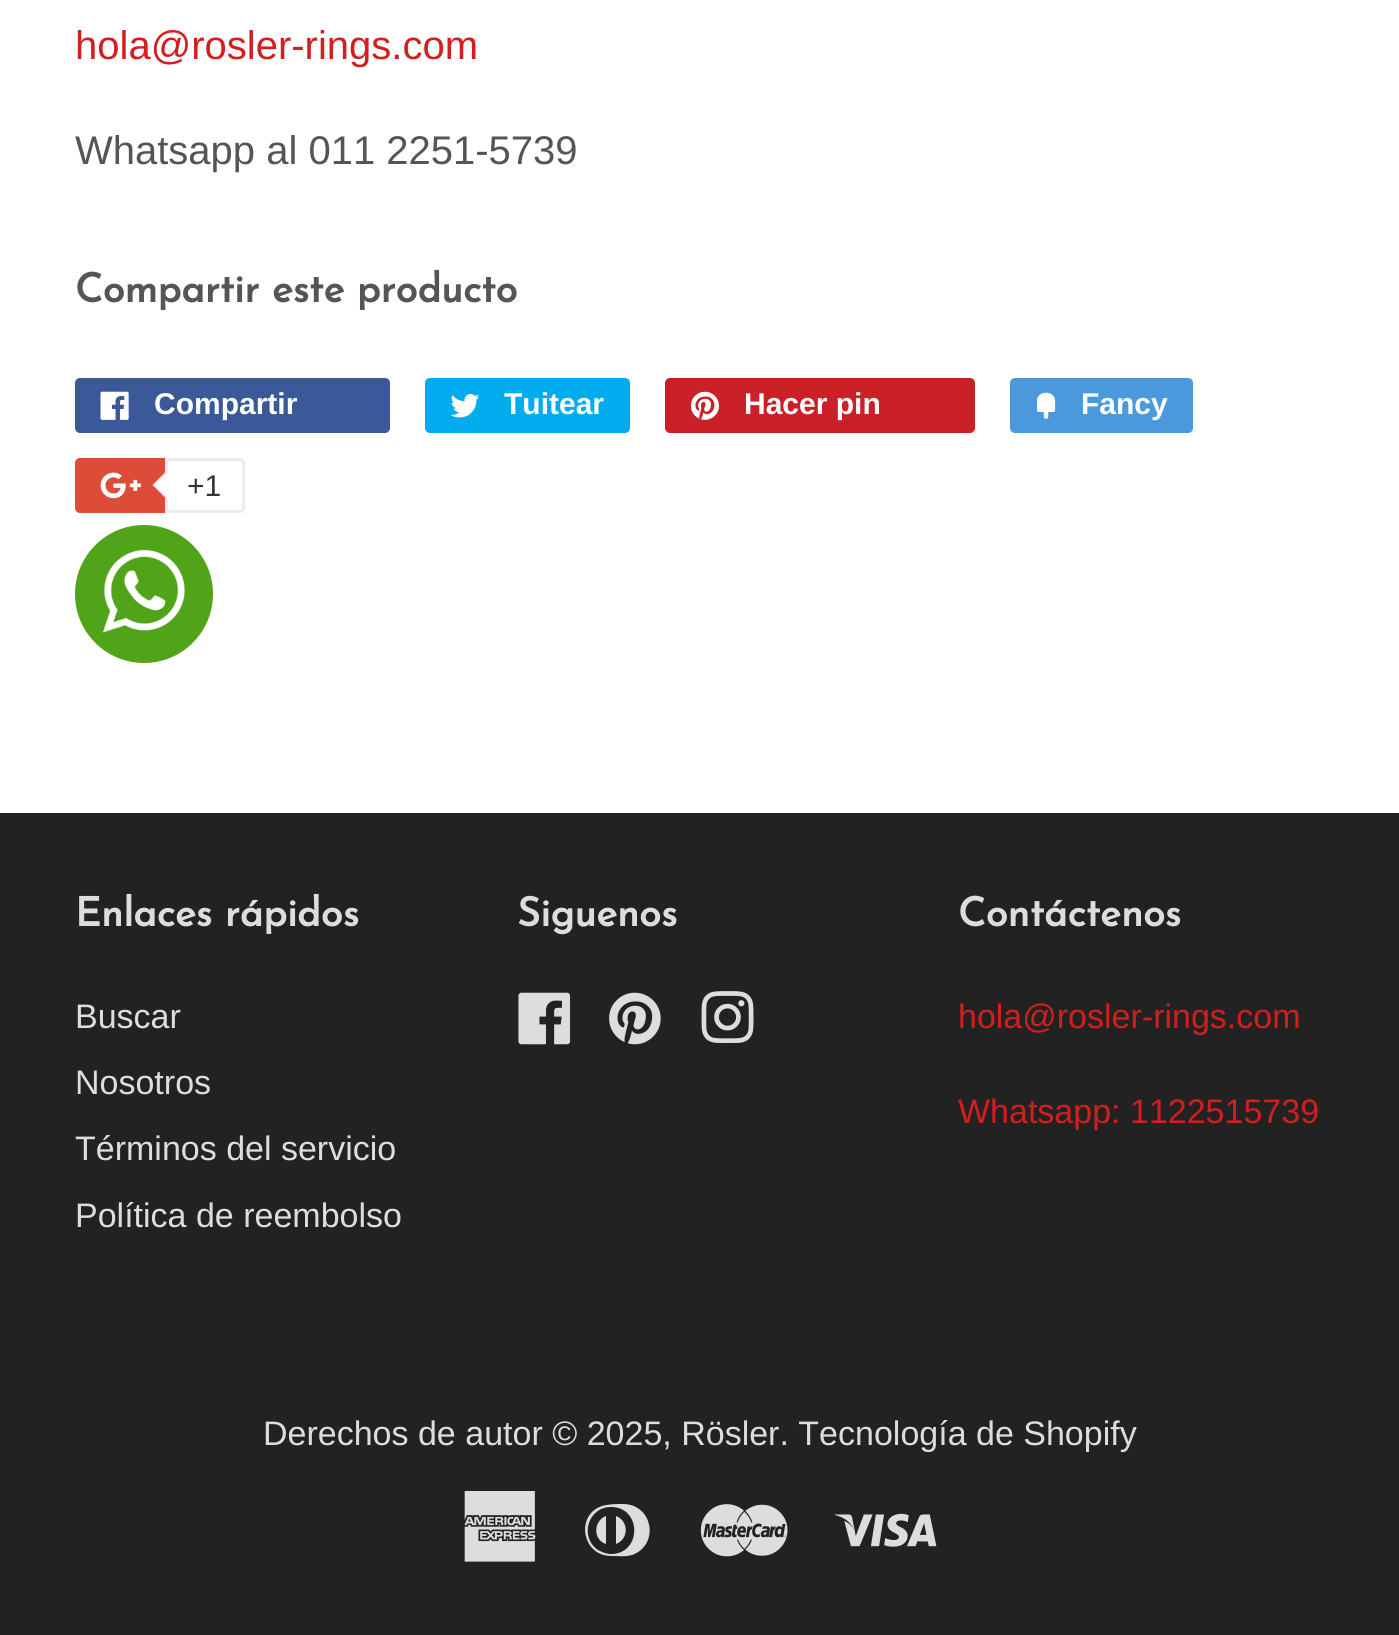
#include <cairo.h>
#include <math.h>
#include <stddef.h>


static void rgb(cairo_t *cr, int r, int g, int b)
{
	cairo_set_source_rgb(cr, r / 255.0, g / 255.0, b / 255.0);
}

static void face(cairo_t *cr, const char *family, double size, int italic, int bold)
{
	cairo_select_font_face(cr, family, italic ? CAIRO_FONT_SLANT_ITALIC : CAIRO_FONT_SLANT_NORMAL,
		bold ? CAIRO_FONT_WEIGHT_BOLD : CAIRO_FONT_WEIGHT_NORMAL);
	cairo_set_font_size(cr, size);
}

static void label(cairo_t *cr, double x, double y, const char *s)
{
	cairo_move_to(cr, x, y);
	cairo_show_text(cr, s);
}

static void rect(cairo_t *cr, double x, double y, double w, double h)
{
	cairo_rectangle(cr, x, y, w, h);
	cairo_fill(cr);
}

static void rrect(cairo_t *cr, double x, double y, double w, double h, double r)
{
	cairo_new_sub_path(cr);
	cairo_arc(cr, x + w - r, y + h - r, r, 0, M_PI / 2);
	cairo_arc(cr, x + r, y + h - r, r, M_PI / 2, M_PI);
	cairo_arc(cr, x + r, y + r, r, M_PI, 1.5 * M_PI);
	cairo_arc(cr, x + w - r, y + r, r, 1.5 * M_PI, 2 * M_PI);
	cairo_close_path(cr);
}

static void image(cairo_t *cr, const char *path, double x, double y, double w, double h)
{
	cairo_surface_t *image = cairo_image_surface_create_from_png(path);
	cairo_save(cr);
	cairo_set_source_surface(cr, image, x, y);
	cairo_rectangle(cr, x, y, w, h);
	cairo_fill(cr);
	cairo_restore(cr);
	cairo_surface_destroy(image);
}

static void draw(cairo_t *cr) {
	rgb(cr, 255, 255, 255);
	cairo_paint(cr);
	face(cr, "Liberation Sans", 40, 0, 0);
	rgb(cr, 211, 30, 30);
	label(cr, 75, 59, "hola@rosler-rings.com");
	rgb(cr, 85, 85, 85);
	label(cr, 75, 164, "Whatsapp al 011 2251-5739");
	face(cr, "Josefin Sans", 40, 0, 1);
	label(cr, 75, 302, "Compartir este producto");
	rgb(cr, 59, 89, 152);
	rrect(cr, 75, 378, 315, 55, 5);
	cairo_fill(cr);
	image(cr, "image0.png", 100, 391, 29, 29);
	face(cr, "Liberation Sans", 30, 0, 1);
	rgb(cr, 255, 255, 255);
	label(cr, 154, 414, "Compartir");
	rgb(cr, 0, 172, 237);
	rrect(cr, 425, 378, 205, 55, 5);
	cairo_fill(cr);
	image(cr, "image1.png", 450, 394, 30, 24);
	rgb(cr, 255, 255, 255);
	label(cr, 504, 414, "Tuitear");
	rgb(cr, 203, 32, 39);
	rrect(cr, 665, 378, 310, 55, 5);
	cairo_fill(cr);
	image(cr, "image2.png", 690, 391, 29, 29);
	rgb(cr, 255, 255, 255);
	label(cr, 744, 414, "Hacer pin");
	rgb(cr, 73, 153, 220);
	rrect(cr, 1010, 378, 183, 55, 5);
	cairo_fill(cr);
	image(cr, "image3.png", 1037, 392, 19, 27);
	rgb(cr, 255, 255, 255);
	label(cr, 1081, 414, "Fancy");
	rgb(cr, 221, 75, 57);
	rrect(cr, 75, 458, 165, 55, 5);
	cairo_fill(cr);
	image(cr, "image4.png", 100, 472, 41, 27);
	rgb(cr, 255, 255, 255);
	cairo_new_path(cr);
	cairo_move_to(cr, 166.5, 459.5);
	cairo_line_to(cr, 240, 459.5);
	cairo_curve_to(cr, 242, 459.5, 243.5, 461, 243.5, 463);
	cairo_line_to(cr, 243.5, 508);
	cairo_curve_to(cr, 243.5, 510, 242, 511.5, 240, 511.5);
	cairo_line_to(cr, 166.5, 511.5);
	cairo_close_path(cr);
	cairo_fill_preserve(cr);
	rgb(cr, 236, 236, 236);
	cairo_set_line_width(cr, 3);
	cairo_stroke(cr);
	cairo_new_path(cr);
	cairo_move_to(cr, 167.5, 470);
	cairo_line_to(cr, 167.5, 500);
	cairo_line_to(cr, 152.5, 485);
	cairo_close_path(cr);
	cairo_fill(cr);
	rgb(cr, 255, 255, 255);
	cairo_new_path(cr);
	cairo_move_to(cr, 170, 470);
	cairo_line_to(cr, 170, 500);
	cairo_line_to(cr, 155, 485);
	cairo_close_path(cr);
	cairo_fill(cr);
	face(cr, "Liberation Sans", 30, 0, 0);
	rgb(cr, 51, 51, 51);
	label(cr, 187, 496, "+1");
	rgb(cr, 81, 164, 25);
	cairo_new_path(cr);
	cairo_arc(cr, 144, 594, 69, 0, 2 * M_PI);
	cairo_fill(cr);
	image(cr, "image5.png", 102, 550, 83, 83);
	rgb(cr, 34, 34, 34);
	rect(cr, 0, 813, 1399, 822);
	face(cr, "Josefin Sans", 40, 0, 1);
	rgb(cr, 221, 221, 221);
	label(cr, 75, 926, "Enlaces rápidos");
	face(cr, "Liberation Sans", 34, 0, 0);
	label(cr, 75, 1028, "Buscar");
	label(cr, 75, 1094, "Nosotros");
	label(cr, 75, 1160, "Términos del servicio");
	label(cr, 75, 1227, "Política de reembolso");
	face(cr, "Josefin Sans", 40, 0, 1);
	label(cr, 517, 926, "Siguenos");
	image(cr, "image6.png", 518, 992, 53, 53);
	image(cr, "image7.png", 609, 992, 52, 53);
	image(cr, "image8.png", 701, 991, 53, 52);
	label(cr, 958, 926, "Contáctenos");
	face(cr, "Liberation Sans", 34, 0, 0);
	rgb(cr, 211, 30, 30);
	label(cr, 958, 1028, "hola@rosler-rings.com");
	label(cr, 958, 1123, "Whatsapp: 1122515739");
	rgb(cr, 221, 221, 221);
	label(cr, 263, 1445, "Derechos de autor © 2025, Rösler. Tecnología de Shopify");
	image(cr, "image9.png", 464, 1491, 72, 71);
	cairo_new_path(cr);
	cairo_move_to(cr, 623, 1504);
	cairo_curve_to(cr, 653, 1504, 660, 1545, 632, 1555);
	cairo_curve_to(cr, 625, 1557, 618, 1556, 611, 1556);
	cairo_curve_to(cr, 582, 1556, 575, 1515, 602, 1506);
	cairo_curve_to(cr, 609, 1504, 616, 1504, 623, 1504);
	cairo_close_path(cr);
	cairo_move_to(cr, 611, 1554);
	cairo_curve_to(cr, 642, 1554, 642, 1507, 611, 1507);
	cairo_curve_to(cr, 588, 1507, 579, 1537, 598, 1550);
	cairo_curve_to(cr, 602, 1552, 606, 1554, 611, 1554);
	cairo_close_path(cr);
	cairo_move_to(cr, 606, 1544);
	cairo_curve_to(cr, 593, 1540, 593, 1521, 606, 1516);
	cairo_close_path(cr);
	cairo_move_to(cr, 616, 1516);
	cairo_curve_to(cr, 629, 1521, 629, 1539, 616, 1544);
	cairo_close_path(cr);
	cairo_fill(cr);
	image(cr, "image10.png", 700, 1504, 88, 53);
	image(cr, "image11.png", 835, 1513, 102, 34);
}

int main(void) {
	cairo_surface_t *surface = cairo_image_surface_create(CAIRO_FORMAT_RGB24, 1399, 1635);
	cairo_t *cr = cairo_create(surface);
	cairo_font_options_t *options = cairo_font_options_create();
	cairo_font_options_set_hint_metrics(options, CAIRO_HINT_METRICS_OFF);
	cairo_font_options_set_hint_style(options, CAIRO_HINT_STYLE_NONE);
	cairo_set_font_options(cr, options);
	cairo_set_miter_limit(cr, 4);
	draw(cr);
	cairo_surface_write_to_png(surface, "render.png");
	cairo_font_options_destroy(options);
	cairo_destroy(cr);
	cairo_surface_destroy(surface);
	return 0;
}
